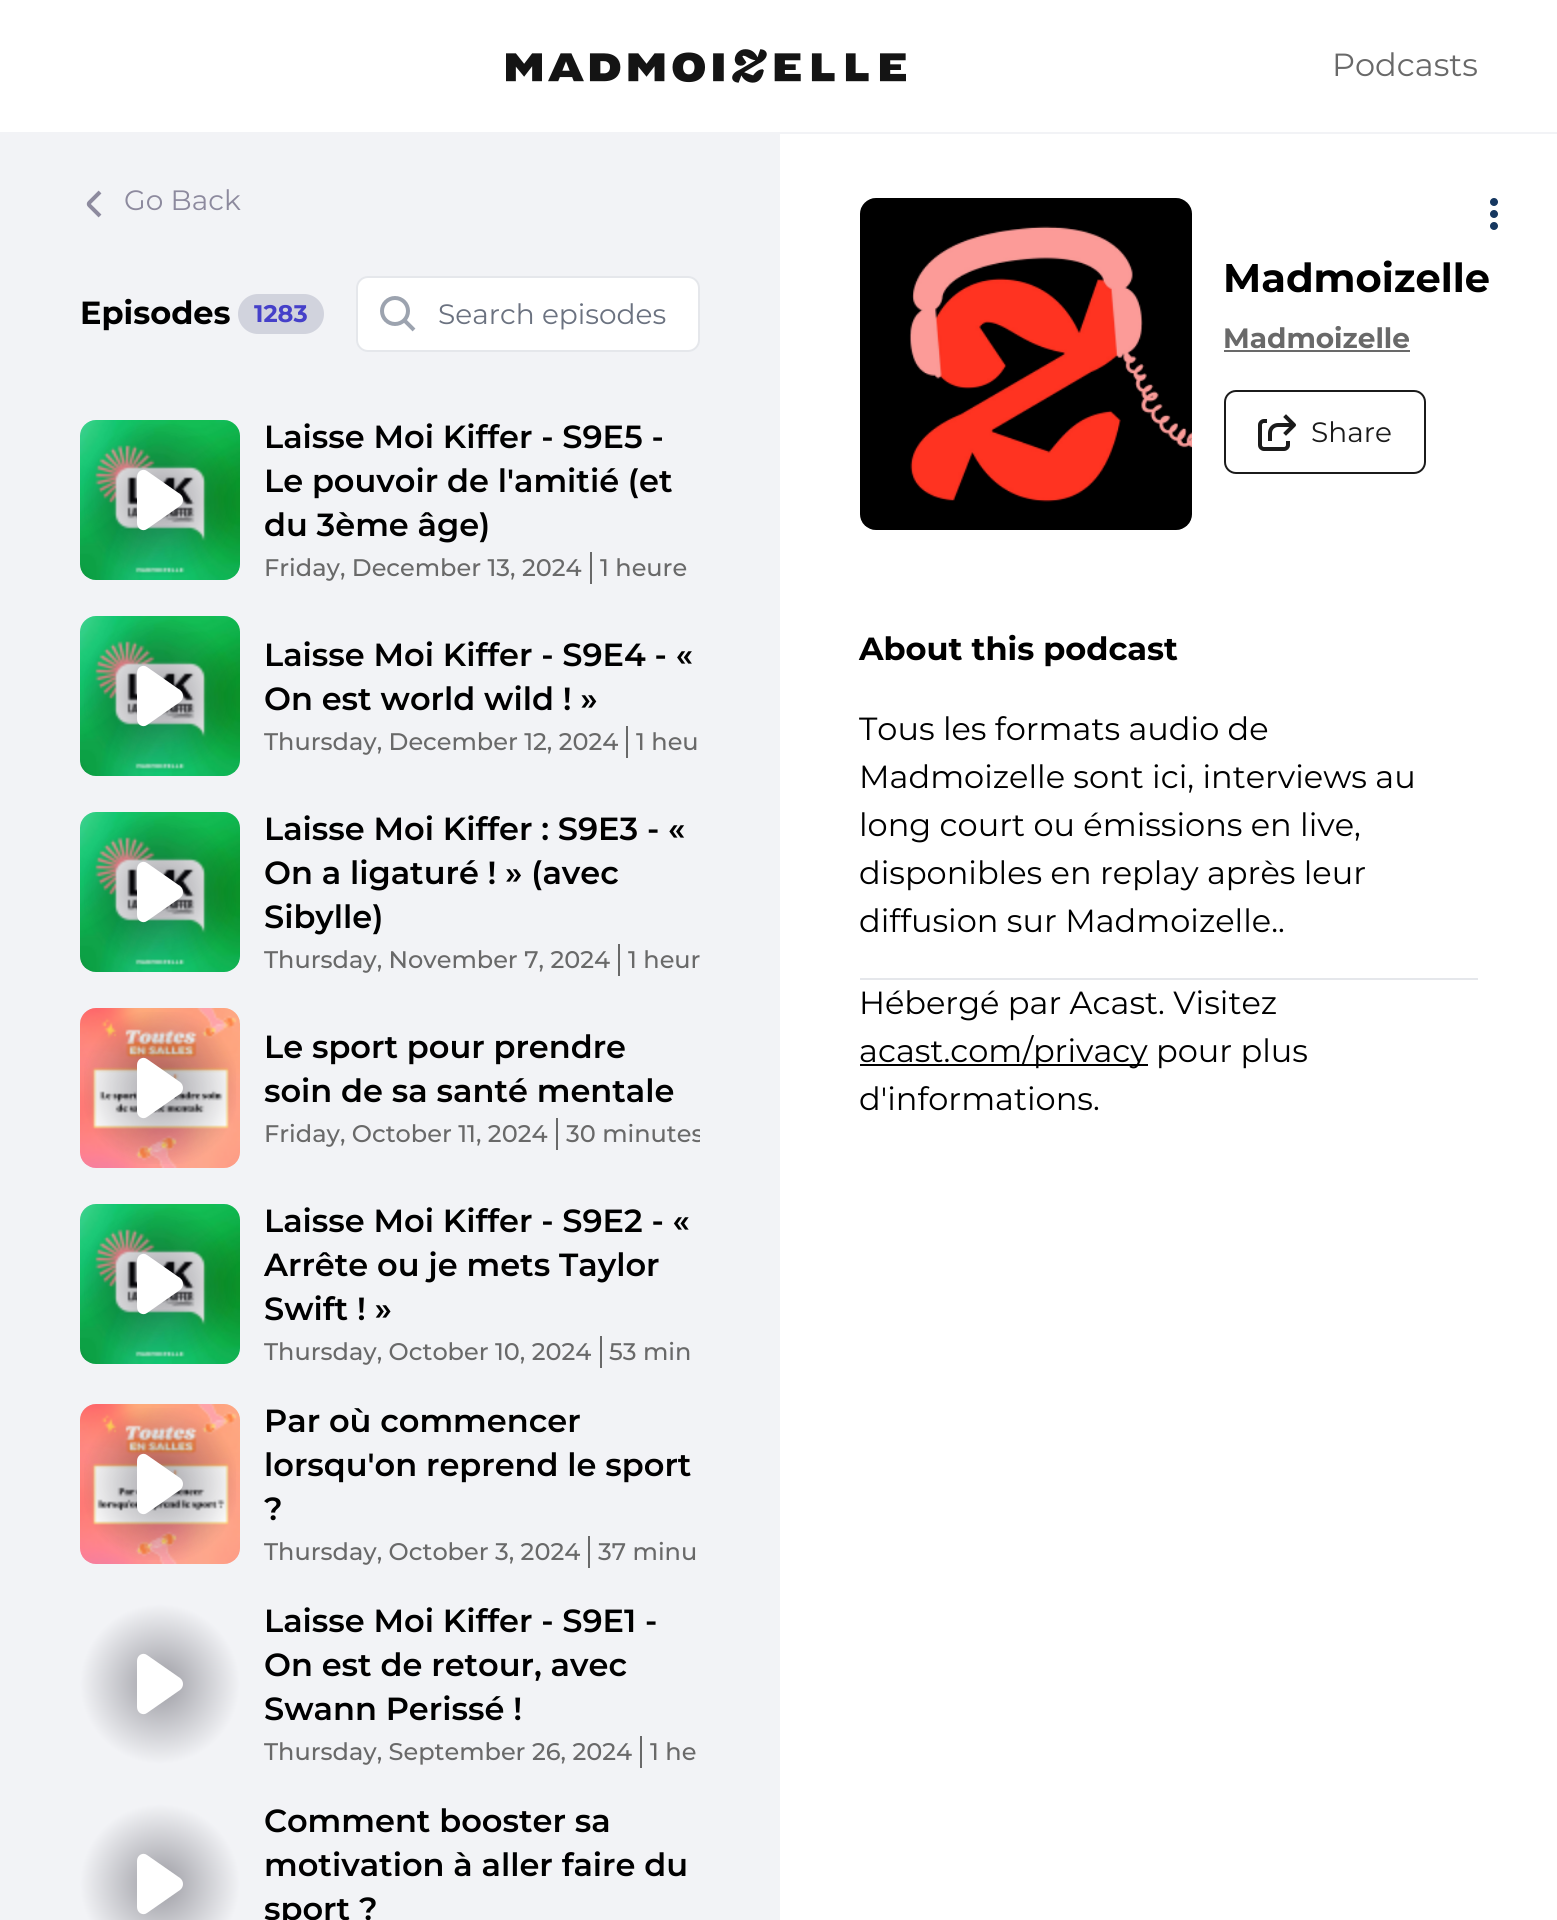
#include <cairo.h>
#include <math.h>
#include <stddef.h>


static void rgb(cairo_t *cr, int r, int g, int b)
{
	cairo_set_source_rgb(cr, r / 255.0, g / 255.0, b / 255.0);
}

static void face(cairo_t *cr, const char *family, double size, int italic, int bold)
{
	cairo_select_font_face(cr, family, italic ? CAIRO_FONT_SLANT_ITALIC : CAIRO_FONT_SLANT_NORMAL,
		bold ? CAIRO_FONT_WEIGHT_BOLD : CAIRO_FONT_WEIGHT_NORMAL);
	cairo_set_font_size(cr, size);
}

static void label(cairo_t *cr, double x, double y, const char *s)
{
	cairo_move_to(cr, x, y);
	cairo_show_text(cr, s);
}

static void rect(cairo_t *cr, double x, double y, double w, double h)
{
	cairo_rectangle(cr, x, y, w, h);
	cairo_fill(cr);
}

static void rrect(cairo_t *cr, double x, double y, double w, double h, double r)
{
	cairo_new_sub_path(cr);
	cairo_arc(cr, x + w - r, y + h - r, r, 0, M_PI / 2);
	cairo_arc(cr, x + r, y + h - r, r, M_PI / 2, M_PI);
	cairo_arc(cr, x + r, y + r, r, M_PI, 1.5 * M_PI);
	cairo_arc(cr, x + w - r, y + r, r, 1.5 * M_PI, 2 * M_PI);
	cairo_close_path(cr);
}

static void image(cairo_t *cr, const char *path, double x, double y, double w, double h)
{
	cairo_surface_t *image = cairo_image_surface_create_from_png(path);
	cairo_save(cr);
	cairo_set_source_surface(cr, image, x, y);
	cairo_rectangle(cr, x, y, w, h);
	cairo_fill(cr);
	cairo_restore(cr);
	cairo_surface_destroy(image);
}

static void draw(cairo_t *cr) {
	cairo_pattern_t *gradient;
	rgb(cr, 255, 255, 255);
	cairo_paint(cr);
	image(cr, "image0.png", 506, 49, 400, 34);
	face(cr, "Montserrat", 32, 0, 0);
	rgb(cr, 105, 105, 105);
	label(cr, 1332, 76, "Podcasts");
	rgb(cr, 242, 243, 246);
	rect(cr, 0, 132, 780, 1788);
	cairo_new_path(cr);
	cairo_move_to(cr, 100, 192);
	cairo_line_to(cr, 89.5, 202.5);
	cairo_curve_to(cr, 88.5, 203.5, 88.5, 204.5, 89.5, 205.5);
	cairo_line_to(cr, 100, 216);
	rgb(cr, 141, 138, 158);
	cairo_set_line_width(cr, 4);
	cairo_stroke(cr);
	face(cr, "Montserrat", 28, 0, 0);
	label(cr, 124, 210, "Go Back");
	face(cr, "Montserrat", 32, 0, 1);
	rgb(cr, 0, 0, 0);
	label(cr, 80, 324, "Episodes");
	rgb(cr, 209, 211, 221);
	rrect(cr, 238, 294, 86, 40, 20);
	cairo_fill(cr);
	face(cr, "Montserrat", 24, 0, 1);
	rgb(cr, 69, 64, 201);
	label(cr, 254, 322, "1283");
	rgb(cr, 255, 255, 255);
	rrect(cr, 357, 277, 342, 74, 11);
	cairo_fill_preserve(cr);
	rgb(cr, 229, 231, 235);
	cairo_set_line_width(cr, 2);
	cairo_stroke(cr);
	cairo_arc(cr, 395, 311, 13, 0, 2 * M_PI);
	rgb(cr, 156, 163, 175);
	cairo_set_line_width(cr, 4);
	cairo_stroke(cr);
	cairo_new_path(cr);
	cairo_move_to(cr, 414, 330);
	cairo_line_to(cr, 404, 320);
	cairo_stroke(cr);
	face(cr, "Montserrat", 28, 0, 0);
	rgb(cr, 107, 114, 128);
	label(cr, 438, 324, "Search episodes");
	image(cr, "image1.png", 80, 420, 160, 160);
	gradient = cairo_pattern_create_radial(160, 500, 0, 160, 500, 80);
	cairo_pattern_add_color_stop_rgba(gradient, 0, 0.094, 0.09, 0.141, 0.4);
	cairo_pattern_add_color_stop_rgba(gradient, 1, 0.094, 0.09, 0.141, 0);
	cairo_set_source(cr, gradient);
	cairo_pattern_destroy(gradient);
	rect(cr, 84, 424, 152, 152);
	rgb(cr, 255, 255, 255);
	cairo_new_path(cr);
	cairo_move_to(cr, 137, 523);
	cairo_line_to(cr, 137, 477);
	cairo_curve_to(cr, 137, 471, 143, 468, 147, 471);
	cairo_line_to(cr, 180, 494);
	cairo_curve_to(cr, 184, 497, 184, 503, 180, 506);
	cairo_line_to(cr, 147, 529);
	cairo_curve_to(cr, 143, 532, 137, 529, 137, 523);
	cairo_close_path(cr);
	cairo_fill(cr);
	face(cr, "Montserrat SemiBold", 32, 0, 0);
	rgb(cr, 0, 0, 0);
	label(cr, 264, 448, "Laisse Moi Kiffer - S9E5 -");
	label(cr, 264, 492, "Le pouvoir de l'amitié (et");
	label(cr, 264, 536, "du 3ème âge)");
	face(cr, "Montserrat Medium", 24, 0, 0);
	rgb(cr, 105, 105, 105);
	label(cr, 264, 576, "Friday, December 13, 2024");
	rect(cr, 590, 552, 2, 32);
	label(cr, 600, 576, "1 heure");
	image(cr, "image2.png", 80, 616, 160, 160);
	gradient = cairo_pattern_create_radial(160, 696, 0, 160, 696, 80);
	cairo_pattern_add_color_stop_rgba(gradient, 0, 0.094, 0.09, 0.141, 0.4);
	cairo_pattern_add_color_stop_rgba(gradient, 1, 0.094, 0.09, 0.141, 0);
	cairo_set_source(cr, gradient);
	cairo_pattern_destroy(gradient);
	rect(cr, 84, 620, 152, 152);
	rgb(cr, 255, 255, 255);
	cairo_new_path(cr);
	cairo_move_to(cr, 137, 719);
	cairo_line_to(cr, 137, 673);
	cairo_curve_to(cr, 137, 667, 143, 664, 147, 667);
	cairo_line_to(cr, 180, 690);
	cairo_curve_to(cr, 184, 693, 184, 699, 180, 702);
	cairo_line_to(cr, 147, 725);
	cairo_curve_to(cr, 143, 728, 137, 725, 137, 719);
	cairo_close_path(cr);
	cairo_fill(cr);
	face(cr, "Montserrat SemiBold", 32, 0, 0);
	rgb(cr, 0, 0, 0);
	label(cr, 264, 666, "Laisse Moi Kiffer - S9E4 - «");
	label(cr, 264, 710, "On est world wild ! »");
	face(cr, "Montserrat Medium", 24, 0, 0);
	rgb(cr, 105, 105, 105);
	label(cr, 264, 750, "Thursday, December 12, 2024");
	rect(cr, 626, 726, 2, 32);
	label(cr, 636, 750, "1 heu");
	image(cr, "image1.png", 80, 812, 160, 160);
	gradient = cairo_pattern_create_radial(160, 892, 0, 160, 892, 80);
	cairo_pattern_add_color_stop_rgba(gradient, 0, 0.094, 0.09, 0.141, 0.4);
	cairo_pattern_add_color_stop_rgba(gradient, 1, 0.094, 0.09, 0.141, 0);
	cairo_set_source(cr, gradient);
	cairo_pattern_destroy(gradient);
	rect(cr, 84, 816, 152, 152);
	rgb(cr, 255, 255, 255);
	cairo_new_path(cr);
	cairo_move_to(cr, 137, 915);
	cairo_line_to(cr, 137, 869);
	cairo_curve_to(cr, 137, 863, 143, 860, 147, 863);
	cairo_line_to(cr, 180, 886);
	cairo_curve_to(cr, 184, 889, 184, 895, 180, 898);
	cairo_line_to(cr, 147, 921);
	cairo_curve_to(cr, 143, 924, 137, 921, 137, 915);
	cairo_close_path(cr);
	cairo_fill(cr);
	face(cr, "Montserrat SemiBold", 32, 0, 0);
	rgb(cr, 0, 0, 0);
	label(cr, 264, 840, "Laisse Moi Kiffer : S9E3 - «");
	label(cr, 264, 884, "On a ligaturé ! » (avec");
	label(cr, 264, 928, "Sibylle)");
	face(cr, "Montserrat Medium", 24, 0, 0);
	rgb(cr, 105, 105, 105);
	label(cr, 264, 968, "Thursday, November 7, 2024");
	rect(cr, 618, 944, 2, 32);
	label(cr, 628, 968, "1 heur");
	image(cr, "image3.png", 80, 1008, 160, 160);
	gradient = cairo_pattern_create_radial(160, 1088, 0, 160, 1088, 80);
	cairo_pattern_add_color_stop_rgba(gradient, 0, 0.094, 0.09, 0.141, 0.4);
	cairo_pattern_add_color_stop_rgba(gradient, 1, 0.094, 0.09, 0.141, 0);
	cairo_set_source(cr, gradient);
	cairo_pattern_destroy(gradient);
	rect(cr, 84, 1012, 152, 152);
	rgb(cr, 255, 255, 255);
	cairo_new_path(cr);
	cairo_move_to(cr, 137, 1111);
	cairo_line_to(cr, 137, 1065);
	cairo_curve_to(cr, 137, 1059, 143, 1056, 147, 1059);
	cairo_line_to(cr, 180, 1082);
	cairo_curve_to(cr, 184, 1085, 184, 1091, 180, 1094);
	cairo_line_to(cr, 147, 1117);
	cairo_curve_to(cr, 143, 1120, 137, 1117, 137, 1111);
	cairo_close_path(cr);
	cairo_fill(cr);
	face(cr, "Montserrat SemiBold", 32, 0, 0);
	rgb(cr, 0, 0, 0);
	label(cr, 264, 1058, "Le sport pour prendre");
	label(cr, 264, 1102, "soin de sa santé mentale");
	face(cr, "Montserrat Medium", 24, 0, 0);
	rgb(cr, 105, 105, 105);
	label(cr, 264, 1142, "Friday, October 11, 2024");
	rect(cr, 556, 1118, 2, 32);
	cairo_save(cr);
	cairo_rectangle(cr, 80, 1008, 620, 160);
	cairo_clip(cr);
	label(cr, 566, 1142, "30 minutes");
	cairo_restore(cr);
	image(cr, "image1.png", 80, 1204, 160, 160);
	gradient = cairo_pattern_create_radial(160, 1284, 0, 160, 1284, 80);
	cairo_pattern_add_color_stop_rgba(gradient, 0, 0.094, 0.09, 0.141, 0.4);
	cairo_pattern_add_color_stop_rgba(gradient, 1, 0.094, 0.09, 0.141, 0);
	cairo_set_source(cr, gradient);
	cairo_pattern_destroy(gradient);
	rect(cr, 84, 1208, 152, 152);
	rgb(cr, 255, 255, 255);
	cairo_new_path(cr);
	cairo_move_to(cr, 137, 1307);
	cairo_line_to(cr, 137, 1261);
	cairo_curve_to(cr, 137, 1255, 143, 1252, 147, 1255);
	cairo_line_to(cr, 180, 1278);
	cairo_curve_to(cr, 184, 1281, 184, 1287, 180, 1290);
	cairo_line_to(cr, 147, 1313);
	cairo_curve_to(cr, 143, 1316, 137, 1313, 137, 1307);
	cairo_close_path(cr);
	cairo_fill(cr);
	face(cr, "Montserrat SemiBold", 32, 0, 0);
	rgb(cr, 0, 0, 0);
	label(cr, 264, 1232, "Laisse Moi Kiffer - S9E2 - «");
	label(cr, 264, 1276, "Arrête ou je mets Taylor");
	label(cr, 264, 1320, "Swift ! »");
	face(cr, "Montserrat Medium", 24, 0, 0);
	rgb(cr, 105, 105, 105);
	label(cr, 264, 1360, "Thursday, October 10, 2024");
	rect(cr, 600, 1336, 2, 32);
	label(cr, 609, 1360, "53 min");
	image(cr, "image4.png", 80, 1404, 160, 160);
	gradient = cairo_pattern_create_radial(160, 1484, 0, 160, 1484, 80);
	cairo_pattern_add_color_stop_rgba(gradient, 0, 0.094, 0.09, 0.141, 0.4);
	cairo_pattern_add_color_stop_rgba(gradient, 1, 0.094, 0.09, 0.141, 0);
	cairo_set_source(cr, gradient);
	cairo_pattern_destroy(gradient);
	rect(cr, 84, 1408, 152, 152);
	rgb(cr, 255, 255, 255);
	cairo_new_path(cr);
	cairo_move_to(cr, 137, 1507);
	cairo_line_to(cr, 137, 1461);
	cairo_curve_to(cr, 137, 1455, 143, 1452, 147, 1455);
	cairo_line_to(cr, 180, 1478);
	cairo_curve_to(cr, 184, 1481, 184, 1487, 180, 1490);
	cairo_line_to(cr, 147, 1513);
	cairo_curve_to(cr, 143, 1516, 137, 1513, 137, 1507);
	cairo_close_path(cr);
	cairo_fill(cr);
	face(cr, "Montserrat SemiBold", 32, 0, 0);
	rgb(cr, 0, 0, 0);
	label(cr, 264, 1432, "Par où commencer");
	label(cr, 264, 1476, "lorsqu'on reprend le sport");
	label(cr, 264, 1520, "?");
	face(cr, "Montserrat Medium", 24, 0, 0);
	rgb(cr, 105, 105, 105);
	label(cr, 264, 1560, "Thursday, October 3, 2024");
	rect(cr, 588, 1536, 2, 32);
	label(cr, 598, 1560, "37 minu");
	gradient = cairo_pattern_create_radial(160, 1684, 0, 160, 1684, 80);
	cairo_pattern_add_color_stop_rgba(gradient, 0, 0.608, 0.608, 0.635, 1);
	cairo_pattern_add_color_stop_rgba(gradient, 1, 0.949, 0.953, 0.965, 1);
	cairo_set_source(cr, gradient);
	cairo_pattern_destroy(gradient);
	rrect(cr, 80, 1604, 160, 160, 16);
	cairo_fill(cr);
	rgb(cr, 255, 255, 255);
	cairo_new_path(cr);
	cairo_move_to(cr, 137, 1707);
	cairo_line_to(cr, 137, 1661);
	cairo_curve_to(cr, 137, 1655, 143, 1652, 147, 1655);
	cairo_line_to(cr, 180, 1678);
	cairo_curve_to(cr, 184, 1681, 184, 1687, 180, 1690);
	cairo_line_to(cr, 147, 1713);
	cairo_curve_to(cr, 143, 1716, 137, 1713, 137, 1707);
	cairo_close_path(cr);
	cairo_fill(cr);
	face(cr, "Montserrat SemiBold", 32, 0, 0);
	rgb(cr, 0, 0, 0);
	label(cr, 264, 1632, "Laisse Moi Kiffer - S9E1 -");
	label(cr, 264, 1676, "On est de retour, avec");
	label(cr, 264, 1720, "Swann Perissé !");
	face(cr, "Montserrat Medium", 24, 0, 0);
	rgb(cr, 105, 105, 105);
	label(cr, 264, 1760, "Thursday, September 26, 2024");
	rect(cr, 640, 1736, 2, 32);
	label(cr, 650, 1760, "1 he");
	gradient = cairo_pattern_create_radial(160, 1884, 0, 160, 1884, 80);
	cairo_pattern_add_color_stop_rgba(gradient, 0, 0.608, 0.608, 0.635, 1);
	cairo_pattern_add_color_stop_rgba(gradient, 1, 0.949, 0.953, 0.965, 1);
	cairo_set_source(cr, gradient);
	cairo_pattern_destroy(gradient);
	cairo_new_path(cr);
	cairo_move_to(cr, 96, 1804);
	cairo_line_to(cr, 224, 1804);
	cairo_curve_to(cr, 233, 1804, 240, 1811, 240, 1820);
	cairo_line_to(cr, 240, 1920);
	cairo_line_to(cr, 80, 1920);
	cairo_line_to(cr, 80, 1820);
	cairo_curve_to(cr, 80, 1811, 87, 1804, 96, 1804);
	cairo_close_path(cr);
	cairo_fill(cr);
	rgb(cr, 255, 255, 255);
	cairo_new_path(cr);
	cairo_move_to(cr, 137, 1907);
	cairo_line_to(cr, 137, 1861);
	cairo_curve_to(cr, 137, 1855, 143, 1852, 147, 1855);
	cairo_line_to(cr, 180, 1878);
	cairo_curve_to(cr, 184, 1881, 184, 1887, 180, 1890);
	cairo_line_to(cr, 147, 1913);
	cairo_curve_to(cr, 143, 1916, 137, 1913, 137, 1907);
	cairo_close_path(cr);
	cairo_fill(cr);
	face(cr, "Montserrat SemiBold", 32, 0, 0);
	rgb(cr, 0, 0, 0);
	label(cr, 264, 1832, "Comment booster sa");
	label(cr, 264, 1876, "motivation à aller faire du");
	label(cr, 264, 1920, "sport ?");
	rgb(cr, 242, 243, 246);
	rect(cr, 780, 132, 777, 2);
	image(cr, "image5.png", 1490, 198, 8, 32);
	image(cr, "image6.png", 860, 198, 332, 332);
	face(cr, "Montserrat", 40, 0, 1);
	rgb(cr, 0, 0, 0);
	label(cr, 1223, 292, "Madmoizelle");
	face(cr, "Montserrat", 28, 0, 1);
	rgb(cr, 105, 105, 105);
	label(cr, 1223, 348, "Madmoizelle");
	rect(cr, 1224, 350, 186, 2);
	rrect(cr, 1225, 391, 200, 82, 11);
	rgb(cr, 27, 27, 27);
	cairo_set_line_width(cr, 2);
	cairo_stroke(cr);
	image(cr, "image7.png", 1258, 414, 38, 37);
	face(cr, "Montserrat", 28, 0, 0);
	label(cr, 1311, 442, "Share");
	face(cr, "Montserrat", 32, 0, 1);
	rgb(cr, 0, 0, 0);
	label(cr, 859, 660, "About this podcast");
	face(cr, "Montserrat", 32, 0, 0);
	label(cr, 859, 740, "Tous les formats audio de");
	label(cr, 859, 788, "Madmoizelle sont ici, interviews au");
	label(cr, 859, 836, "long court ou émissions en live,");
	label(cr, 859, 884, "disponibles en replay après leur");
	label(cr, 859, 932, "diffusion sur Madmoizelle..");
	rgb(cr, 229, 231, 235);
	rect(cr, 860, 978, 618, 2);
	rgb(cr, 0, 0, 0);
	label(cr, 859, 1014, "Hébergé par Acast. Visitez");
	rect(cr, 860, 1064, 288, 2);
	label(cr, 859, 1062, "acast.com/privacy pour plus");
	label(cr, 859, 1110, "d'informations.");
}

int main(void) {
	cairo_surface_t *surface = cairo_image_surface_create(CAIRO_FORMAT_RGB24, 1557, 1920);
	cairo_t *cr = cairo_create(surface);
	cairo_font_options_t *options = cairo_font_options_create();
	cairo_font_options_set_hint_metrics(options, CAIRO_HINT_METRICS_OFF);
	cairo_font_options_set_hint_style(options, CAIRO_HINT_STYLE_NONE);
	cairo_set_font_options(cr, options);
	cairo_set_miter_limit(cr, 4);
	draw(cr);
	cairo_surface_write_to_png(surface, "render.png");
	cairo_font_options_destroy(options);
	cairo_destroy(cr);
	cairo_surface_destroy(surface);
	return 0;
}
